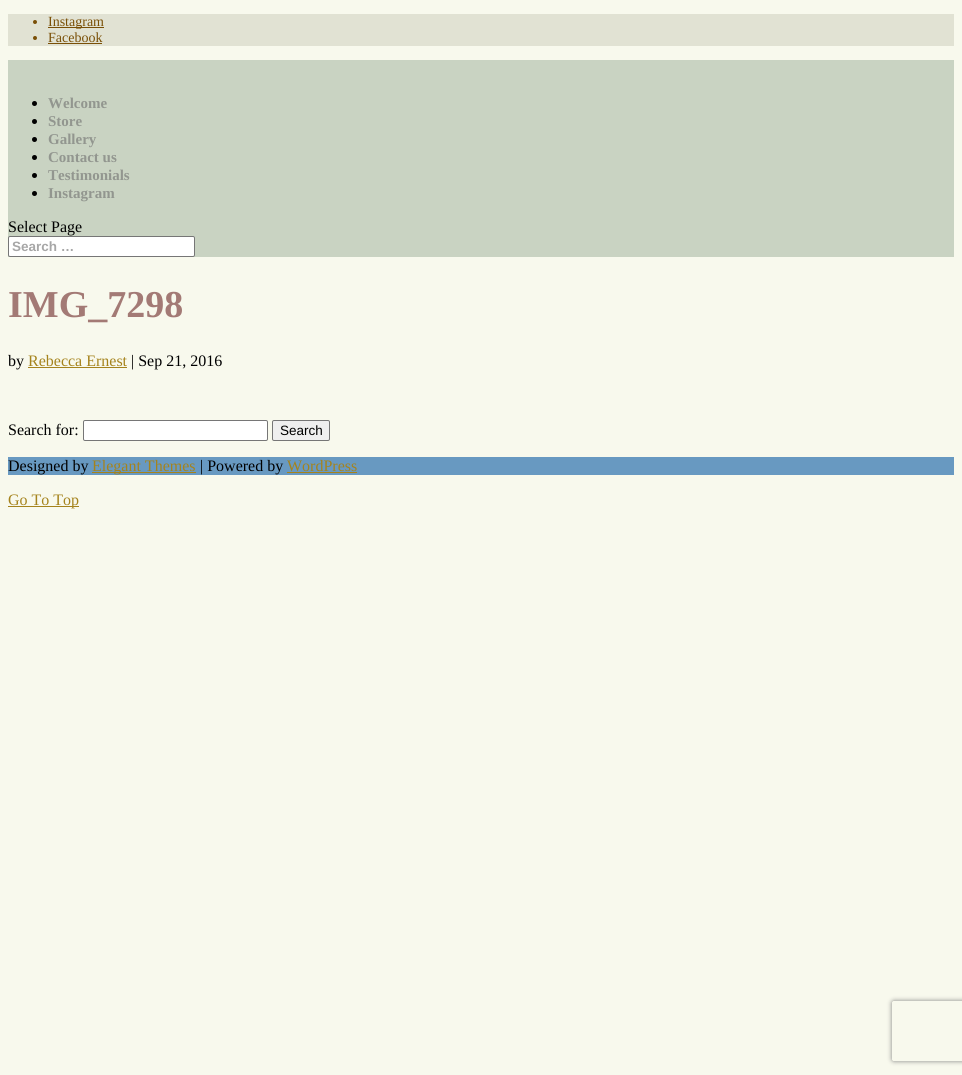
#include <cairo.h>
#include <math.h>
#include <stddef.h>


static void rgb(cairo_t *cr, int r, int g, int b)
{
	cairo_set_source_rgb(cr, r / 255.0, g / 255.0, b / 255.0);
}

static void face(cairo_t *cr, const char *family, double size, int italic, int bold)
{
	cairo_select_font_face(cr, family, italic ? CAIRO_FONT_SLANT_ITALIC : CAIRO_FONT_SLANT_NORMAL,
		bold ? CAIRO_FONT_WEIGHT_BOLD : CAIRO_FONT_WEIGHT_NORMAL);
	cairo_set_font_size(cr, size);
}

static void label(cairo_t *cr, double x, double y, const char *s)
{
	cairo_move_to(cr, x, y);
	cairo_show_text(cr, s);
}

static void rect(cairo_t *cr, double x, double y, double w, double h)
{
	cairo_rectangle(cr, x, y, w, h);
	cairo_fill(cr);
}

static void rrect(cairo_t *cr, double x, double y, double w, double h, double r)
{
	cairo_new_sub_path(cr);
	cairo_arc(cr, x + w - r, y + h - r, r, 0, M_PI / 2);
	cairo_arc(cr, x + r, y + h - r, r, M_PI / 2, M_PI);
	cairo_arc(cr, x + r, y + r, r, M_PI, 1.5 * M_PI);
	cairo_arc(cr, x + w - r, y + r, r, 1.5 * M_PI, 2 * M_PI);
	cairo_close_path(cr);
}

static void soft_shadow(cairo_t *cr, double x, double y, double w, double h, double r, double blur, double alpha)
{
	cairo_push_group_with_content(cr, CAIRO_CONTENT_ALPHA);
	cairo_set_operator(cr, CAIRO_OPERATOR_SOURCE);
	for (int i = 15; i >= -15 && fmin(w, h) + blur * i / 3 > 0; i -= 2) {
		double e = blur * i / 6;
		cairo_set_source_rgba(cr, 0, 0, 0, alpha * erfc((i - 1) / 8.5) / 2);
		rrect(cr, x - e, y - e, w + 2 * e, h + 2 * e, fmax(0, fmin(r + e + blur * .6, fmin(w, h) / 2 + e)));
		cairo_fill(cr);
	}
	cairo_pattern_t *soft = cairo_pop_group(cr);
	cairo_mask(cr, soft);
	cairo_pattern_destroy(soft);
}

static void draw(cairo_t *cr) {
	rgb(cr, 248, 249, 237);
	cairo_paint(cr);
	rgb(cr, 225, 226, 211);
	rect(cr, 8, 14, 946, 32);
	rgb(cr, 122, 80, 7);
	cairo_arc(cr, 35, 22, 2, 0, 2 * M_PI);
	cairo_fill(cr);
	rect(cr, 48, 27, 56, 1);
	face(cr, "Liberation Serif", 14, 0, 0);
	label(cr, 48, 26, "Instagram");
	cairo_new_path(cr);
	cairo_arc(cr, 35, 38, 2, 0, 2 * M_PI);
	cairo_fill(cr);
	label(cr, 48, 42, "Facebook");
	rect(cr, 48, 43, 54, 1);
	rgb(cr, 201, 211, 194);
	rect(cr, 8, 60, 946, 197);
	rgb(cr, 0, 0, 0);
	cairo_new_path(cr);
	cairo_arc(cr, 34.5, 103.5, 2.5, 0, 2 * M_PI);
	cairo_fill(cr);
	face(cr, "Liberation Serif", 15, 0, 1);
	rgb(cr, 146, 150, 143);
	label(cr, 48, 108, "Welcome");
	rgb(cr, 0, 0, 0);
	cairo_new_path(cr);
	cairo_arc(cr, 34.5, 121.5, 2.5, 0, 2 * M_PI);
	cairo_fill(cr);
	rgb(cr, 146, 150, 143);
	label(cr, 48, 126, "Store");
	rgb(cr, 0, 0, 0);
	cairo_new_path(cr);
	cairo_arc(cr, 34.5, 139.5, 2.5, 0, 2 * M_PI);
	cairo_fill(cr);
	rgb(cr, 146, 150, 143);
	label(cr, 48, 144, "Gallery");
	rgb(cr, 0, 0, 0);
	cairo_new_path(cr);
	cairo_arc(cr, 34.5, 157.5, 2.5, 0, 2 * M_PI);
	cairo_fill(cr);
	rgb(cr, 146, 150, 143);
	label(cr, 48, 162, "Contact us");
	rgb(cr, 0, 0, 0);
	cairo_new_path(cr);
	cairo_arc(cr, 34.5, 175.5, 2.5, 0, 2 * M_PI);
	cairo_fill(cr);
	rgb(cr, 146, 150, 143);
	label(cr, 48, 180, "Testimonials");
	rgb(cr, 0, 0, 0);
	cairo_new_path(cr);
	cairo_arc(cr, 34.5, 193.5, 2.5, 0, 2 * M_PI);
	cairo_fill(cr);
	rgb(cr, 146, 150, 143);
	label(cr, 48, 198, "Instagram");
	face(cr, "Liberation Serif", 16, 0, 0);
	rgb(cr, 0, 0, 0);
	label(cr, 8, 232, "Select Page");
	rgb(cr, 255, 255, 255);
	rrect(cr, 8.5, 236.5, 186, 20, 1.5);
	cairo_fill_preserve(cr);
	rgb(cr, 118, 118, 118);
	cairo_set_line_width(cr, 1);
	cairo_stroke(cr);
	face(cr, "Liberation Sans", 13.5, 0, 1);
	rgb(cr, 167, 167, 167);
	label(cr, 12, 251, "Search …");
	face(cr, "Liberation Serif", 38, 0, 1);
	rgb(cr, 163, 122, 117);
	label(cr, 8, 317, "IMG_7298");
	face(cr, "Liberation Serif", 16, 0, 0);
	rgb(cr, 0, 0, 0);
	label(cr, 8, 366, "by");
	rgb(cr, 165, 131, 28);
	label(cr, 28, 366, "Rebecca Ernest");
	rect(cr, 28, 367, 99, 1);
	rgb(cr, 0, 0, 0);
	label(cr, 131, 366, "| Sep 21, 2016");
	label(cr, 8, 435, "Search for:");
	rgb(cr, 255, 255, 255);
	rrect(cr, 83.5, 420.5, 184, 20, 1.5);
	cairo_fill_preserve(cr);
	rgb(cr, 118, 118, 118);
	cairo_stroke(cr);
	rgb(cr, 239, 239, 239);
	rrect(cr, 272.5, 420.5, 57, 20, 1.5);
	cairo_fill_preserve(cr);
	rgb(cr, 118, 118, 118);
	cairo_stroke(cr);
	face(cr, "Liberation Sans", 13.5, 0, 0);
	rgb(cr, 0, 0, 0);
	label(cr, 280, 435, "Search");
	rgb(cr, 104, 153, 193);
	rect(cr, 8, 457, 946, 18);
	face(cr, "Liberation Serif", 16, 0, 0);
	rgb(cr, 0, 0, 0);
	label(cr, 8, 471, "Designed by");
	rgb(cr, 165, 131, 28);
	rect(cr, 92, 472, 104, 1);
	label(cr, 92, 471, "Elegant Themes");
	rgb(cr, 0, 0, 0);
	label(cr, 200, 471, "| Powered by");
	rgb(cr, 165, 131, 28);
	label(cr, 287, 471, "WordPress");
	rect(cr, 287, 472, 70, 1);
	rect(cr, 8, 506, 71, 1);
	label(cr, 8, 505, "Go To Top");
	cairo_save(cr);
	cairo_set_fill_rule(cr, CAIRO_FILL_RULE_EVEN_ODD);
	cairo_new_path(cr);
	cairo_move_to(cr, 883, 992);
	cairo_line_to(cr, 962, 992);
	cairo_line_to(cr, 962, 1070);
	cairo_line_to(cr, 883, 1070);
	cairo_close_path(cr);
	cairo_move_to(cr, 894, 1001);
	cairo_line_to(cr, 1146, 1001);
	cairo_curve_to(cr, 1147, 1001, 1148, 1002, 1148, 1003);
	cairo_line_to(cr, 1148, 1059);
	cairo_curve_to(cr, 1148, 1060, 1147, 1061, 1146, 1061);
	cairo_line_to(cr, 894, 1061);
	cairo_curve_to(cr, 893, 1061, 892, 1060, 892, 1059);
	cairo_line_to(cr, 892, 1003);
	cairo_curve_to(cr, 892, 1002, 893, 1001, 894, 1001);
	cairo_close_path(cr);
	cairo_clip(cr);
	rgb(cr, 128, 128, 128);
	soft_shadow(cr, 892, 1001, 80, 60, 2, 2.5, 1);
	cairo_restore(cr);
}

int main(void) {
	cairo_surface_t *surface = cairo_image_surface_create(CAIRO_FORMAT_RGB24, 962, 1075);
	cairo_t *cr = cairo_create(surface);
	cairo_font_options_t *options = cairo_font_options_create();
	cairo_font_options_set_hint_metrics(options, CAIRO_HINT_METRICS_OFF);
	cairo_font_options_set_hint_style(options, CAIRO_HINT_STYLE_NONE);
	cairo_set_font_options(cr, options);
	cairo_set_miter_limit(cr, 4);
	draw(cr);
	cairo_surface_write_to_png(surface, "render.png");
	cairo_font_options_destroy(options);
	cairo_destroy(cr);
	cairo_surface_destroy(surface);
	return 0;
}
